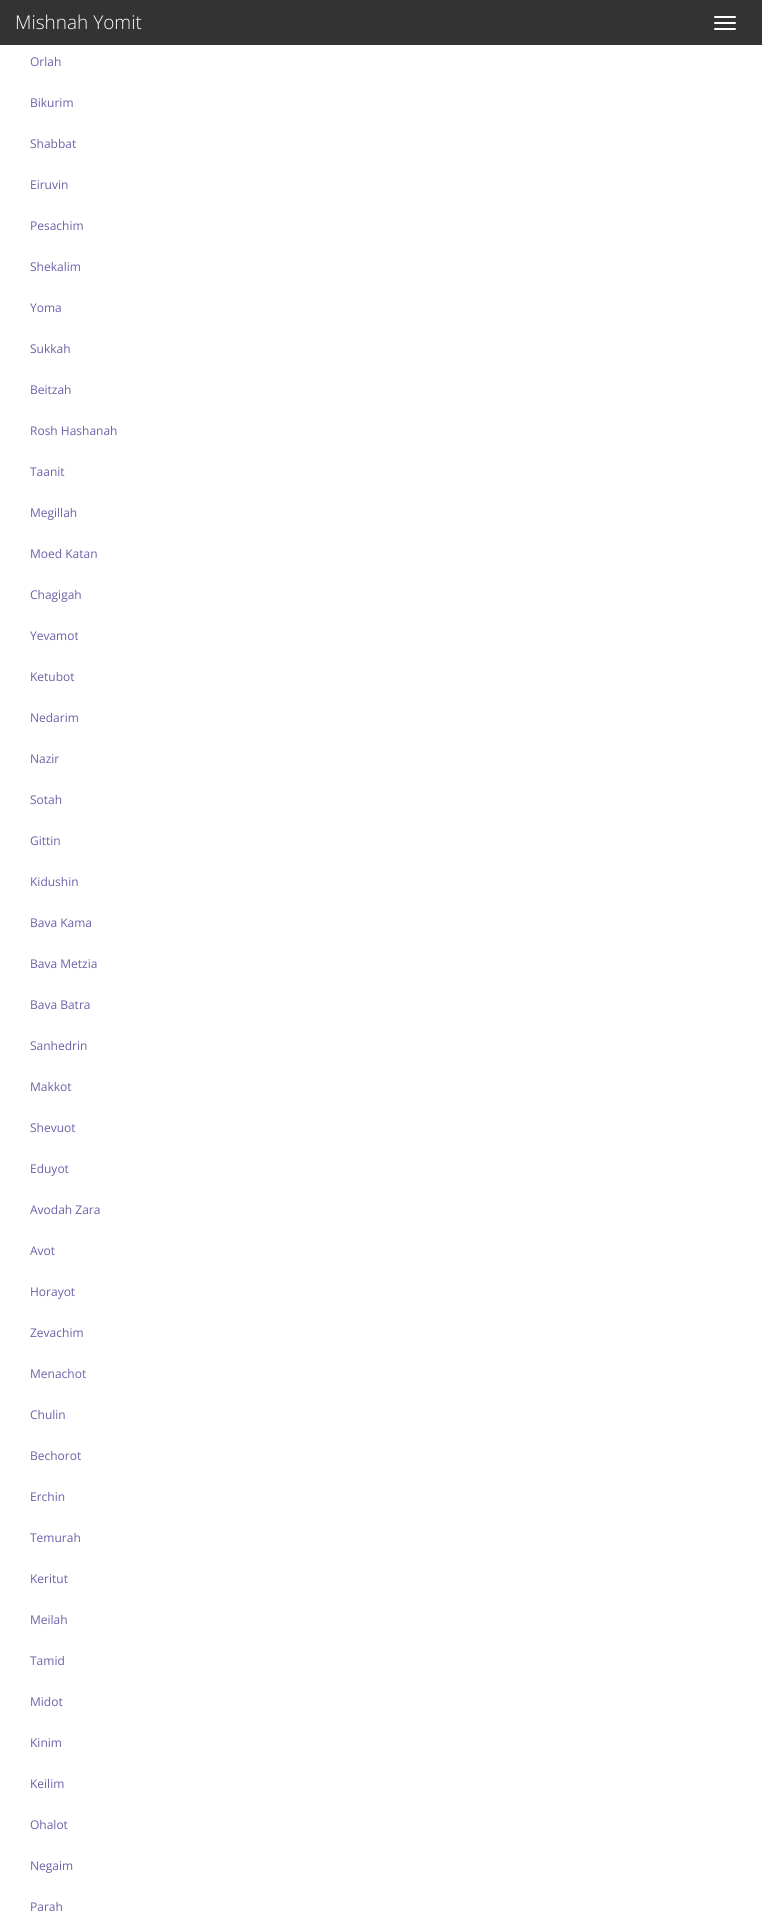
#include <cairo.h>
#include <math.h>
#include <stddef.h>


static void rgb(cairo_t *cr, int r, int g, int b)
{
	cairo_set_source_rgb(cr, r / 255.0, g / 255.0, b / 255.0);
}

static void face(cairo_t *cr, const char *family, double size, int italic, int bold)
{
	cairo_select_font_face(cr, family, italic ? CAIRO_FONT_SLANT_ITALIC : CAIRO_FONT_SLANT_NORMAL,
		bold ? CAIRO_FONT_WEIGHT_BOLD : CAIRO_FONT_WEIGHT_NORMAL);
	cairo_set_font_size(cr, size);
}

static void label(cairo_t *cr, double x, double y, const char *s)
{
	cairo_move_to(cr, x, y);
	cairo_show_text(cr, s);
}

static void rect(cairo_t *cr, double x, double y, double w, double h)
{
	cairo_rectangle(cr, x, y, w, h);
	cairo_fill(cr);
}

static void rrect(cairo_t *cr, double x, double y, double w, double h, double r)
{
	cairo_new_sub_path(cr);
	cairo_arc(cr, x + w - r, y + h - r, r, 0, M_PI / 2);
	cairo_arc(cr, x + r, y + h - r, r, M_PI / 2, M_PI);
	cairo_arc(cr, x + r, y + r, r, M_PI, 1.5 * M_PI);
	cairo_arc(cr, x + w - r, y + r, r, 1.5 * M_PI, 2 * M_PI);
	cairo_close_path(cr);
}

static void draw(cairo_t *cr) {
	rgb(cr, 255, 255, 255);
	cairo_paint(cr);
	rgb(cr, 51, 51, 51);
	rect(cr, 0, 0, 762, 45);
	face(cr, "Open Sans Light", 19, 0, 0);
	rgb(cr, 255, 255, 255);
	label(cr, 15, 29, "Mishnah Yomit");
	rrect(cr, 714, 16, 22, 2, 1);
	cairo_fill(cr);
	rrect(cr, 714, 22, 22, 2, 1);
	cairo_fill(cr);
	rrect(cr, 714, 28, 22, 2, 1);
	cairo_fill(cr);
	face(cr, "Open Sans", 12, 0, 0);
	rgb(cr, 108, 97, 168);
	label(cr, 30, 66, "Orlah");
	label(cr, 30, 107, "Bikurim");
	label(cr, 30, 148, "Shabbat");
	label(cr, 30, 189, "Eiruvin");
	label(cr, 30, 230, "Pesachim");
	label(cr, 30, 271, "Shekalim");
	label(cr, 30, 312, "Yoma");
	label(cr, 30, 353, "Sukkah");
	label(cr, 30, 394, "Beitzah");
	label(cr, 30, 435, "Rosh Hashanah");
	label(cr, 30, 476, "Taanit");
	label(cr, 30, 517, "Megillah");
	label(cr, 30, 558, "Moed Katan");
	label(cr, 30, 599, "Chagigah");
	label(cr, 30, 640, "Yevamot");
	label(cr, 30, 681, "Ketubot");
	label(cr, 30, 722, "Nedarim");
	label(cr, 30, 763, "Nazir");
	label(cr, 30, 804, "Sotah");
	label(cr, 30, 845, "Gittin");
	label(cr, 30, 886, "Kidushin");
	label(cr, 30, 927, "Bava Kama");
	label(cr, 30, 968, "Bava Metzia");
	label(cr, 30, 1009, "Bava Batra");
	label(cr, 30, 1050, "Sanhedrin");
	label(cr, 30, 1091, "Makkot");
	label(cr, 30, 1132, "Shevuot");
	label(cr, 30, 1173, "Eduyot");
	label(cr, 30, 1214, "Avodah Zara");
	label(cr, 30, 1255, "Avot");
	label(cr, 30, 1296, "Horayot");
	label(cr, 30, 1337, "Zevachim");
	label(cr, 30, 1378, "Menachot");
	label(cr, 30, 1419, "Chulin");
	label(cr, 30, 1460, "Bechorot");
	label(cr, 30, 1501, "Erchin");
	label(cr, 30, 1542, "Temurah");
	label(cr, 30, 1583, "Keritut");
	label(cr, 30, 1624, "Meilah");
	label(cr, 30, 1665, "Tamid");
	label(cr, 30, 1706, "Midot");
	label(cr, 30, 1747, "Kinim");
	label(cr, 30, 1788, "Keilim");
	label(cr, 30, 1829, "Ohalot");
	label(cr, 30, 1870, "Negaim");
	label(cr, 30, 1911, "Parah");
}

int main(void) {
	cairo_surface_t *surface = cairo_image_surface_create(CAIRO_FORMAT_RGB24, 762, 1925);
	cairo_t *cr = cairo_create(surface);
	cairo_font_options_t *options = cairo_font_options_create();
	cairo_font_options_set_hint_metrics(options, CAIRO_HINT_METRICS_OFF);
	cairo_font_options_set_hint_style(options, CAIRO_HINT_STYLE_NONE);
	cairo_set_font_options(cr, options);
	cairo_set_miter_limit(cr, 4);
	draw(cr);
	cairo_surface_write_to_png(surface, "render.png");
	cairo_font_options_destroy(options);
	cairo_destroy(cr);
	cairo_surface_destroy(surface);
	return 0;
}
